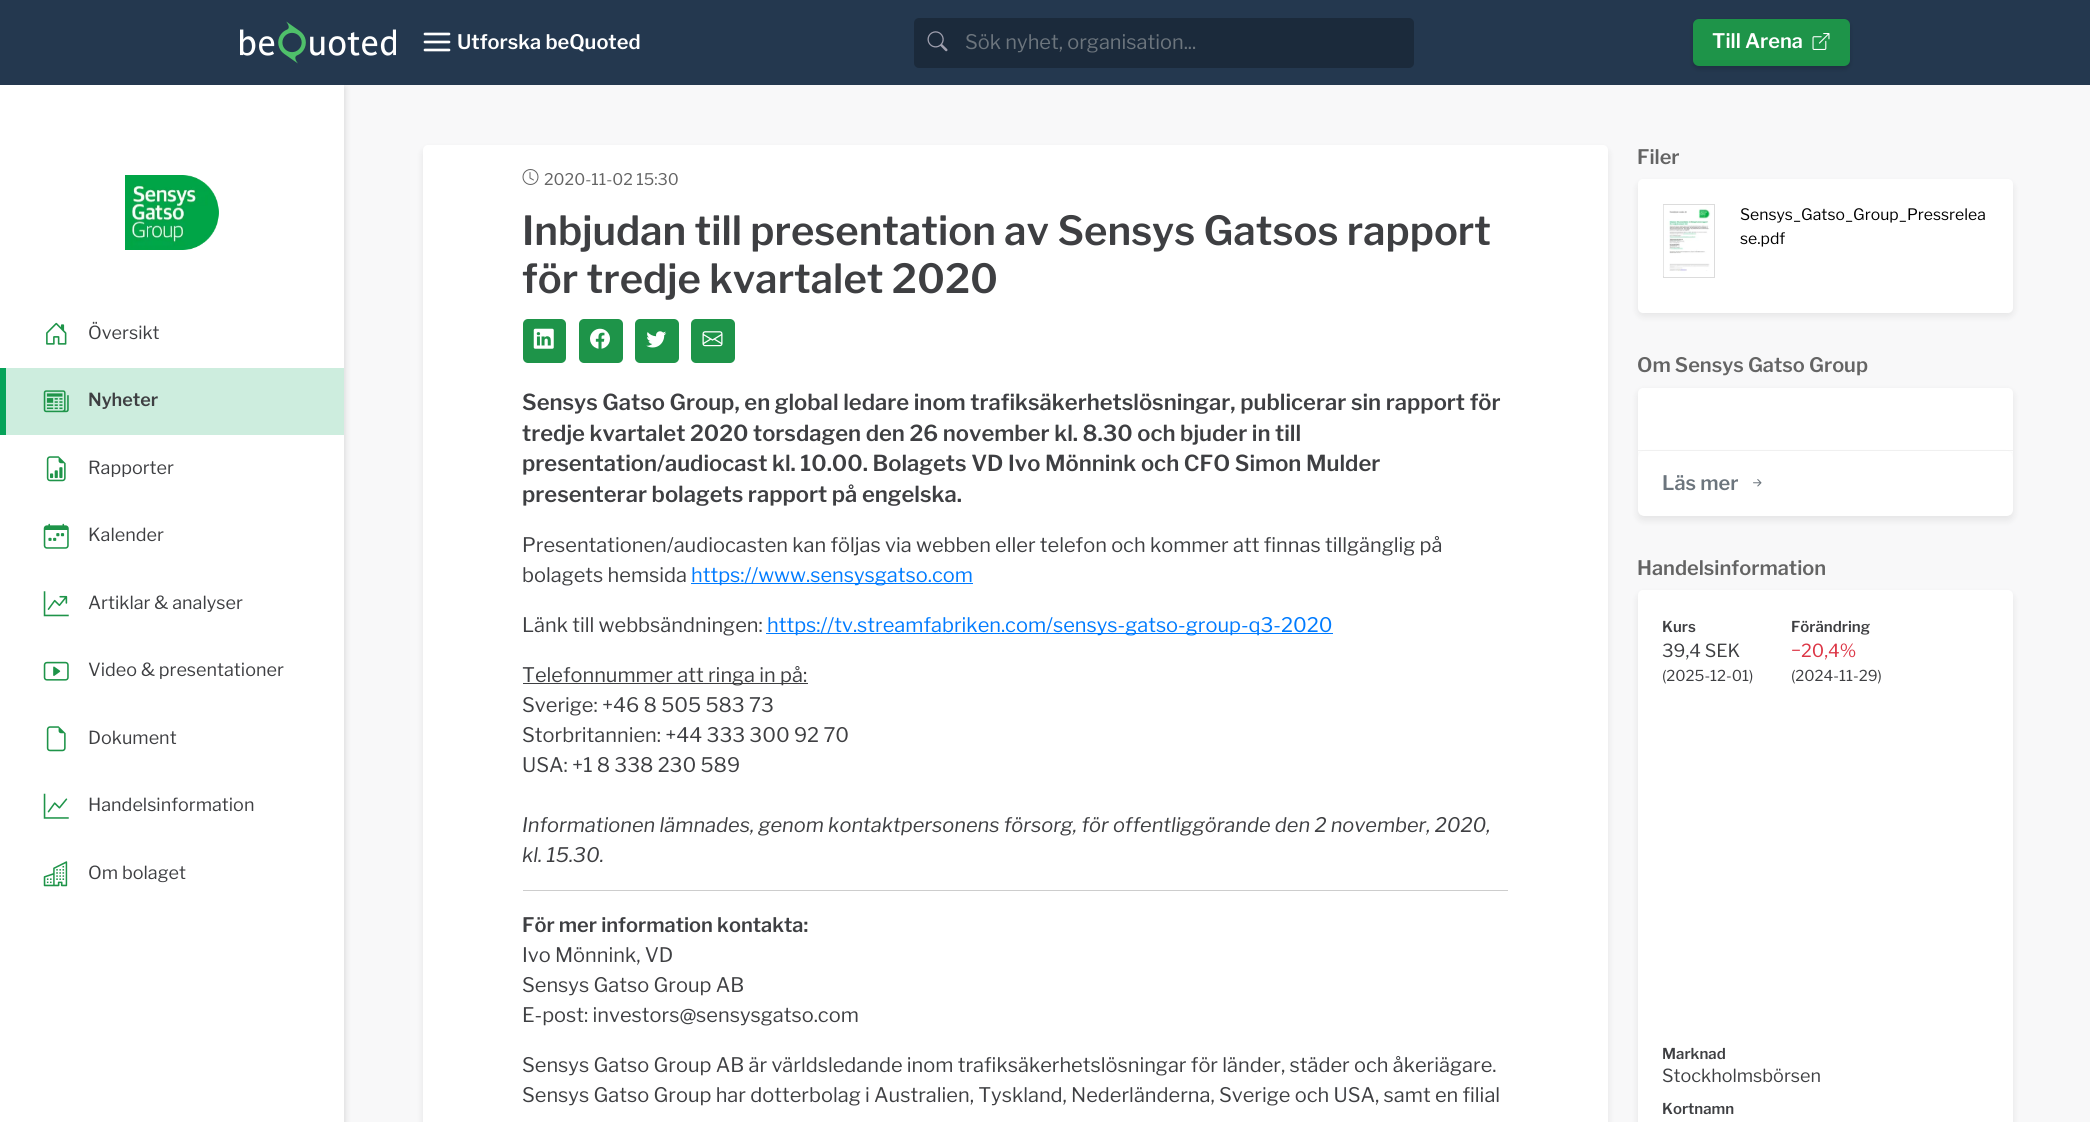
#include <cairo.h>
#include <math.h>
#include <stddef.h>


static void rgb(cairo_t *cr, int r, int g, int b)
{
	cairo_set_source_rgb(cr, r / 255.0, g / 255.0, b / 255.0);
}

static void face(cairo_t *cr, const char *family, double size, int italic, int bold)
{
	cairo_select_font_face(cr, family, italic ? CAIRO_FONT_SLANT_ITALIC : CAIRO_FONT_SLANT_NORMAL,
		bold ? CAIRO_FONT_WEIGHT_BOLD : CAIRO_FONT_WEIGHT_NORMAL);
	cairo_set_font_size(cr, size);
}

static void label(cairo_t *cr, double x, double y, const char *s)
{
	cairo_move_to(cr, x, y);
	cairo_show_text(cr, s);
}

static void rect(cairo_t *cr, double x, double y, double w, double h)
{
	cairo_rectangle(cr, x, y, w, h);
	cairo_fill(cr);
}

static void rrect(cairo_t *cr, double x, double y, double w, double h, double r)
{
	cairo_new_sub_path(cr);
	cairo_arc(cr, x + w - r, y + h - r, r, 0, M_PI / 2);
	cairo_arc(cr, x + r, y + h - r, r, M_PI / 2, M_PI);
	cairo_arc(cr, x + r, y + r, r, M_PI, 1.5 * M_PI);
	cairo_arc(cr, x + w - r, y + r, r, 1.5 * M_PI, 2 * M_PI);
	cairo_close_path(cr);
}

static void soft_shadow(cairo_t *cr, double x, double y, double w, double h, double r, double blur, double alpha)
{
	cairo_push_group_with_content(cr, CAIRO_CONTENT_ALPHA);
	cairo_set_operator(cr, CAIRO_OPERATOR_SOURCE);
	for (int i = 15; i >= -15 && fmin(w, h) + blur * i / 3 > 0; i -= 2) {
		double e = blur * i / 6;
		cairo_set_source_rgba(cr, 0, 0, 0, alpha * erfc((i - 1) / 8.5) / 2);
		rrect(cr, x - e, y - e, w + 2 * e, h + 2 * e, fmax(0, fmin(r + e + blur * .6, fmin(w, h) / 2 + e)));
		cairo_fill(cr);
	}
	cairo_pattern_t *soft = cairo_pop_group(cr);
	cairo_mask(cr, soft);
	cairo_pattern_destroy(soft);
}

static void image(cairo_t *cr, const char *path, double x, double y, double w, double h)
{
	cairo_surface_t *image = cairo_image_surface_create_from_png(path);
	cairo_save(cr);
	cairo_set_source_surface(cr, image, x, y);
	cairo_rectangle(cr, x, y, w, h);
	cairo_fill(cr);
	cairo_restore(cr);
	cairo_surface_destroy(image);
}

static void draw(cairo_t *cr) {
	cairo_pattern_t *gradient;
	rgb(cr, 248, 248, 249);
	cairo_paint(cr);
	rgb(cr, 0, 0, 0);
	soft_shadow(cr, 0, 88, 344, 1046, 0, 4, 0.16);
	rgb(cr, 36, 56, 79);
	rect(cr, 0, 0, 2090, 85);
	image(cr, "image0.png", 240, 21, 156, 43);
	cairo_new_path(cr);
	cairo_move_to(cr, 425, 42);
	cairo_line_to(cr, 449, 42);
	cairo_move_to(cr, 425, 34);
	cairo_line_to(cr, 449, 34);
	cairo_move_to(cr, 425, 50);
	cairo_line_to(cr, 449, 50);
	rgb(cr, 255, 255, 255);
	cairo_set_line_width(cr, 2.7);
	cairo_set_line_cap(cr, CAIRO_LINE_CAP_ROUND);
	cairo_set_line_join(cr, CAIRO_LINE_JOIN_ROUND);
	cairo_stroke(cr);
	face(cr, "Libre Franklin Thin", 20, 0, 0);
	label(cr, 457, 49, "Utforska beQuoted");
	rgb(cr, 27, 42, 59);
	rrect(cr, 914, 18, 500, 50, 5);
	cairo_fill(cr);
	image(cr, "image1.png", 927, 31, 21, 21);
	face(cr, "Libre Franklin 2 Thin", 20, 0, 0);
	rgb(cr, 108, 117, 125);
	label(cr, 965, 49, "Sök nyhet, organisation...");
	rgb(cr, 0, 0, 0);
	soft_shadow(cr, 1693, 21, 157, 48, 6, 2.5, 0.16);
	rgb(cr, 30, 148, 73);
	rrect(cr, 1693, 19, 157, 47, 6);
	cairo_fill(cr);
	gradient = cairo_pattern_create_linear(1771, 19, 1771, 399);
	cairo_pattern_add_color_stop_rgba(gradient, 0, 0, 0, 0, 0);
	cairo_pattern_add_color_stop_rgba(gradient, 1, 0, 0, 0, 0.2);
	cairo_set_source(cr, gradient);
	cairo_pattern_destroy(gradient);
	rect(cr, 1693, 60, 157, 6);
	face(cr, "Libre Franklin Thin", 20, 0, 0);
	rgb(cr, 255, 255, 255);
	label(cr, 1712, 48, "Till Arena");
	image(cr, "image2.png", 1812, 33, 18, 17);
	rect(cr, 0, 85, 344, 1037);
	image(cr, "image3.png", 125, 175, 94, 75);
	image(cr, "image4.png", 46, 322, 21, 23);
	face(cr, "Libre Franklin 2 Thin", 18, 0, 0);
	rgb(cr, 62, 63, 66);
	label(cr, 88, 339, "Översikt");
	rgb(cr, 205, 237, 222);
	rect(cr, 6, 368, 338, 67);
	rgb(cr, 6, 163, 89);
	rect(cr, 0, 368, 6, 67);
	image(cr, "image5.png", 43, 390, 26, 23);
	face(cr, "Libre Franklin Thin", 18, 0, 0);
	rgb(cr, 62, 63, 66);
	label(cr, 88, 406, "Nyheter");
	image(cr, "image6.png", 46, 456, 20, 26);
	face(cr, "Libre Franklin 2 Thin", 18, 0, 0);
	label(cr, 88, 474, "Rapporter");
	image(cr, "image7.png", 43, 523, 26, 26);
	label(cr, 88, 541, "Kalender");
	image(cr, "image8.png", 43, 591, 26, 26);
	label(cr, 88, 609, "Artiklar & analyser");
	image(cr, "image9.png", 43, 661, 26, 20);
	label(cr, 88, 676, "Video & presentationer");
	image(cr, "image10.png", 46, 726, 20, 26);
	label(cr, 88, 744, "Dokument");
	image(cr, "image11.png", 43, 793, 26, 26);
	label(cr, 88, 811, "Handelsinformation");
	image(cr, "image12.png", 43, 861, 25, 26);
	label(cr, 88, 879, "Om bolaget");
	rgb(cr, 0, 0, 0);
	soft_shadow(cr, 423, 149, 1185, 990, 5, 4, 0.08);
	rgb(cr, 255, 255, 255);
	rrect(cr, 423, 145, 1185, 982, 5);
	cairo_fill(cr);
	image(cr, "image13.png", 522, 169, 17, 16);
	face(cr, "Libre Franklin 2 Thin", 16, 0, 0);
	rgb(cr, 100, 100, 100);
	label(cr, 544, 185, "2020-11-02 15:30");
	face(cr, "Libre Franklin Thin", 40, 0, 0);
	rgb(cr, 62, 63, 66);
	label(cr, 522, 245, "Inbjudan till presentation av Sensys Gatsos rapport");
	label(cr, 522, 293, "för tredje kvartalet 2020");
	rgb(cr, 30, 148, 73);
	rrect(cr, 523, 319, 43, 44, 5);
	cairo_fill(cr);
	image(cr, "image14.png", 533, 328, 21, 21);
	rrect(cr, 579, 319, 44, 44, 5);
	cairo_fill(cr);
	image(cr, "image15.png", 590, 328, 20, 21);
	rrect(cr, 635, 319, 44, 44, 5);
	cairo_fill(cr);
	image(cr, "image16.png", 646, 331, 21, 17);
	rrect(cr, 691, 319, 44, 44, 5);
	cairo_fill(cr);
	image(cr, "image17.png", 702, 331, 21, 16);
	face(cr, "Libre Franklin Thin", 22, 0, 0);
	rgb(cr, 62, 63, 66);
	label(cr, 522, 410, "Sensys Gatso Group, en global ledare inom trafiksäkerhetslösningar, publicerar sin rapport för");
	label(cr, 522, 441, "tredje kvartalet 2020 torsdagen den 26 november kl. 8.30 och bjuder in till");
	label(cr, 522, 471, "presentation/audiocast kl. 10.00. Bolagets VD Ivo Mönnink och CFO Simon Mulder");
	label(cr, 522, 502, "presenterar bolagets rapport på engelska.");
	face(cr, "Libre Franklin 2 Thin", 20, 0, 0);
	label(cr, 522, 552, "Presentationen/audiocasten kan följas via webben eller telefon och kommer att finnas tillgänglig på");
	label(cr, 522, 582, "bolagets hemsida");
	rgb(cr, 0, 123, 255);
	rect(cr, 691, 583, 282, 1);
	label(cr, 691, 582, "https://www.sensysgatso.com");
	rgb(cr, 62, 63, 66);
	label(cr, 522, 632, "Länk till webbsändningen:");
	rgb(cr, 0, 123, 255);
	rect(cr, 766, 633, 567, 1);
	label(cr, 767, 632, "https://tv.streamfabriken.com/sensys-gatso-group-q3-2020");
	rgb(cr, 62, 63, 66);
	rect(cr, 523, 683, 285, 1);
	label(cr, 522, 682, "Telefonnummer att ringa in på:");
	label(cr, 522, 712, "Sverige: +46 8 505 583 73");
	label(cr, 522, 742, "Storbritannien: +44 333 300 92 70");
	label(cr, 522, 772, "USA: +1 8 338 230 589");
	face(cr, "Libre Franklin Thin", 20, 1, 0);
	label(cr, 522, 832, "Informationen lämnades, genom kontaktpersonens försorg, för offentliggörande den 2 november, 2020,");
	label(cr, 522, 862, "kl. 15.30.");
	rgb(cr, 205, 205, 205);
	rect(cr, 523, 890, 985, 1);
	face(cr, "Libre Franklin Thin", 20, 0, 0);
	rgb(cr, 62, 63, 66);
	label(cr, 522, 932, "För mer information kontakta:");
	face(cr, "Libre Franklin 2 Thin", 20, 0, 0);
	label(cr, 522, 962, "Ivo Mönnink, VD");
	label(cr, 522, 992, "Sensys Gatso Group AB");
	label(cr, 522, 1022, "E-post: investors@sensysgatso.com");
	label(cr, 522, 1072, "Sensys Gatso Group AB är världsledande inom trafiksäkerhetslösningar för länder, städer och åkeriägare.");
	label(cr, 522, 1102, "Sensys Gatso Group har dotterbolag i Australien, Tyskland, Nederländerna, Sverige och USA, samt en filial");
	face(cr, "Libre Franklin Thin", 20, 0, 0);
	rgb(cr, 100, 100, 100);
	label(cr, 1637, 164, "Filer");
	rgb(cr, 0, 0, 0);
	soft_shadow(cr, 1638, 183, 375, 133, 5, 4, 0.08);
	rgb(cr, 255, 255, 255);
	rrect(cr, 1638, 179, 375, 134, 5);
	cairo_fill(cr);
	cairo_rectangle(cr, 1663.5, 204.5, 51, 73);
	rgb(cr, 220, 220, 220);
	cairo_set_line_width(cr, 1);
	cairo_set_line_cap(cr, CAIRO_LINE_CAP_BUTT);
	cairo_set_line_join(cr, CAIRO_LINE_JOIN_MITER);
	cairo_stroke(cr);
	image(cr, "image18.png", 1663, 205, 48, 71);
	face(cr, "Libre Franklin 2 Thin", 15.75, 0, 0);
	rgb(cr, 0, 0, 0);
	label(cr, 1740, 220, "Sensys_Gatso_Group_Pressrelea");
	label(cr, 1740, 244, "se.pdf");
	face(cr, "Libre Franklin Thin", 20, 0, 0);
	rgb(cr, 100, 100, 100);
	label(cr, 1637, 372, "Om Sensys Gatso Group");
	rgb(cr, 0, 0, 0);
	soft_shadow(cr, 1638, 391, 375, 129, 5, 4, 0.08);
	rgb(cr, 255, 255, 255);
	rrect(cr, 1638, 388, 375, 128, 5);
	cairo_fill(cr);
	rgb(cr, 242, 242, 242);
	rect(cr, 1638, 450, 375, 1);
	cairo_save(cr);
	rrect(cr, 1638, 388, 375, 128, 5);
	cairo_clip(cr);
	rgb(cr, 0, 0, 0);
	soft_shadow(cr, 1638, 454, 375, 65, 6, 2.5, 0.16);
	cairo_restore(cr);
	cairo_save(cr);
	rrect(cr, 1638, 388, 375, 128, 5);
	cairo_clip(cr);
	rgb(cr, 255, 255, 255);
	rrect(cr, 1638, 451, 375, 65, 6);
	cairo_fill(cr);
	cairo_restore(cr);
	rgb(cr, 108, 117, 125);
	label(cr, 1662, 490, "Läs mer");
	image(cr, "image19.png", 1753, 479, 9, 8);
	rgb(cr, 100, 100, 100);
	label(cr, 1637, 575, "Handelsinformation");
	rgb(cr, 0, 0, 0);
	soft_shadow(cr, 1638, 594, 375, 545, 5, 4, 0.08);
	rgb(cr, 255, 255, 255);
	rrect(cr, 1638, 590, 375, 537, 5);
	cairo_fill(cr);
	face(cr, "Libre Franklin Thin", 15, 0, 0);
	rgb(cr, 62, 63, 66);
	label(cr, 1662, 632, "Kurs");
	face(cr, "Libre Franklin 2 Thin", 18, 0, 0);
	label(cr, 1662, 657, "39,4 SEK");
	face(cr, "Libre Franklin 2 Thin", 15, 0, 0);
	label(cr, 1662, 681, "(2025-12-01)");
	face(cr, "Libre Franklin Thin", 15, 0, 0);
	label(cr, 1791, 632, "Förändring");
	face(cr, "Libre Franklin 2 Thin", 18, 0, 0);
	rgb(cr, 220, 53, 69);
	label(cr, 1791, 657, "−20,4%");
	face(cr, "Libre Franklin 2 Thin", 15, 0, 0);
	rgb(cr, 62, 63, 66);
	label(cr, 1791, 681, "(2024-11-29)");
	face(cr, "Libre Franklin Thin", 15, 0, 0);
	label(cr, 1662, 1059, "Marknad");
	face(cr, "Libre Franklin 2 Thin", 18, 0, 0);
	label(cr, 1662, 1082, "Stockholmsbörsen");
	face(cr, "Libre Franklin Thin", 15, 0, 0);
	label(cr, 1662, 1114, "Kortnamn");
}

int main(void) {
	cairo_surface_t *surface = cairo_image_surface_create(CAIRO_FORMAT_RGB24, 2090, 1122);
	cairo_t *cr = cairo_create(surface);
	cairo_font_options_t *options = cairo_font_options_create();
	cairo_font_options_set_hint_metrics(options, CAIRO_HINT_METRICS_OFF);
	cairo_font_options_set_hint_style(options, CAIRO_HINT_STYLE_NONE);
	cairo_set_font_options(cr, options);
	cairo_set_miter_limit(cr, 4);
	draw(cr);
	cairo_surface_write_to_png(surface, "render.png");
	cairo_font_options_destroy(options);
	cairo_destroy(cr);
	cairo_surface_destroy(surface);
	return 0;
}
